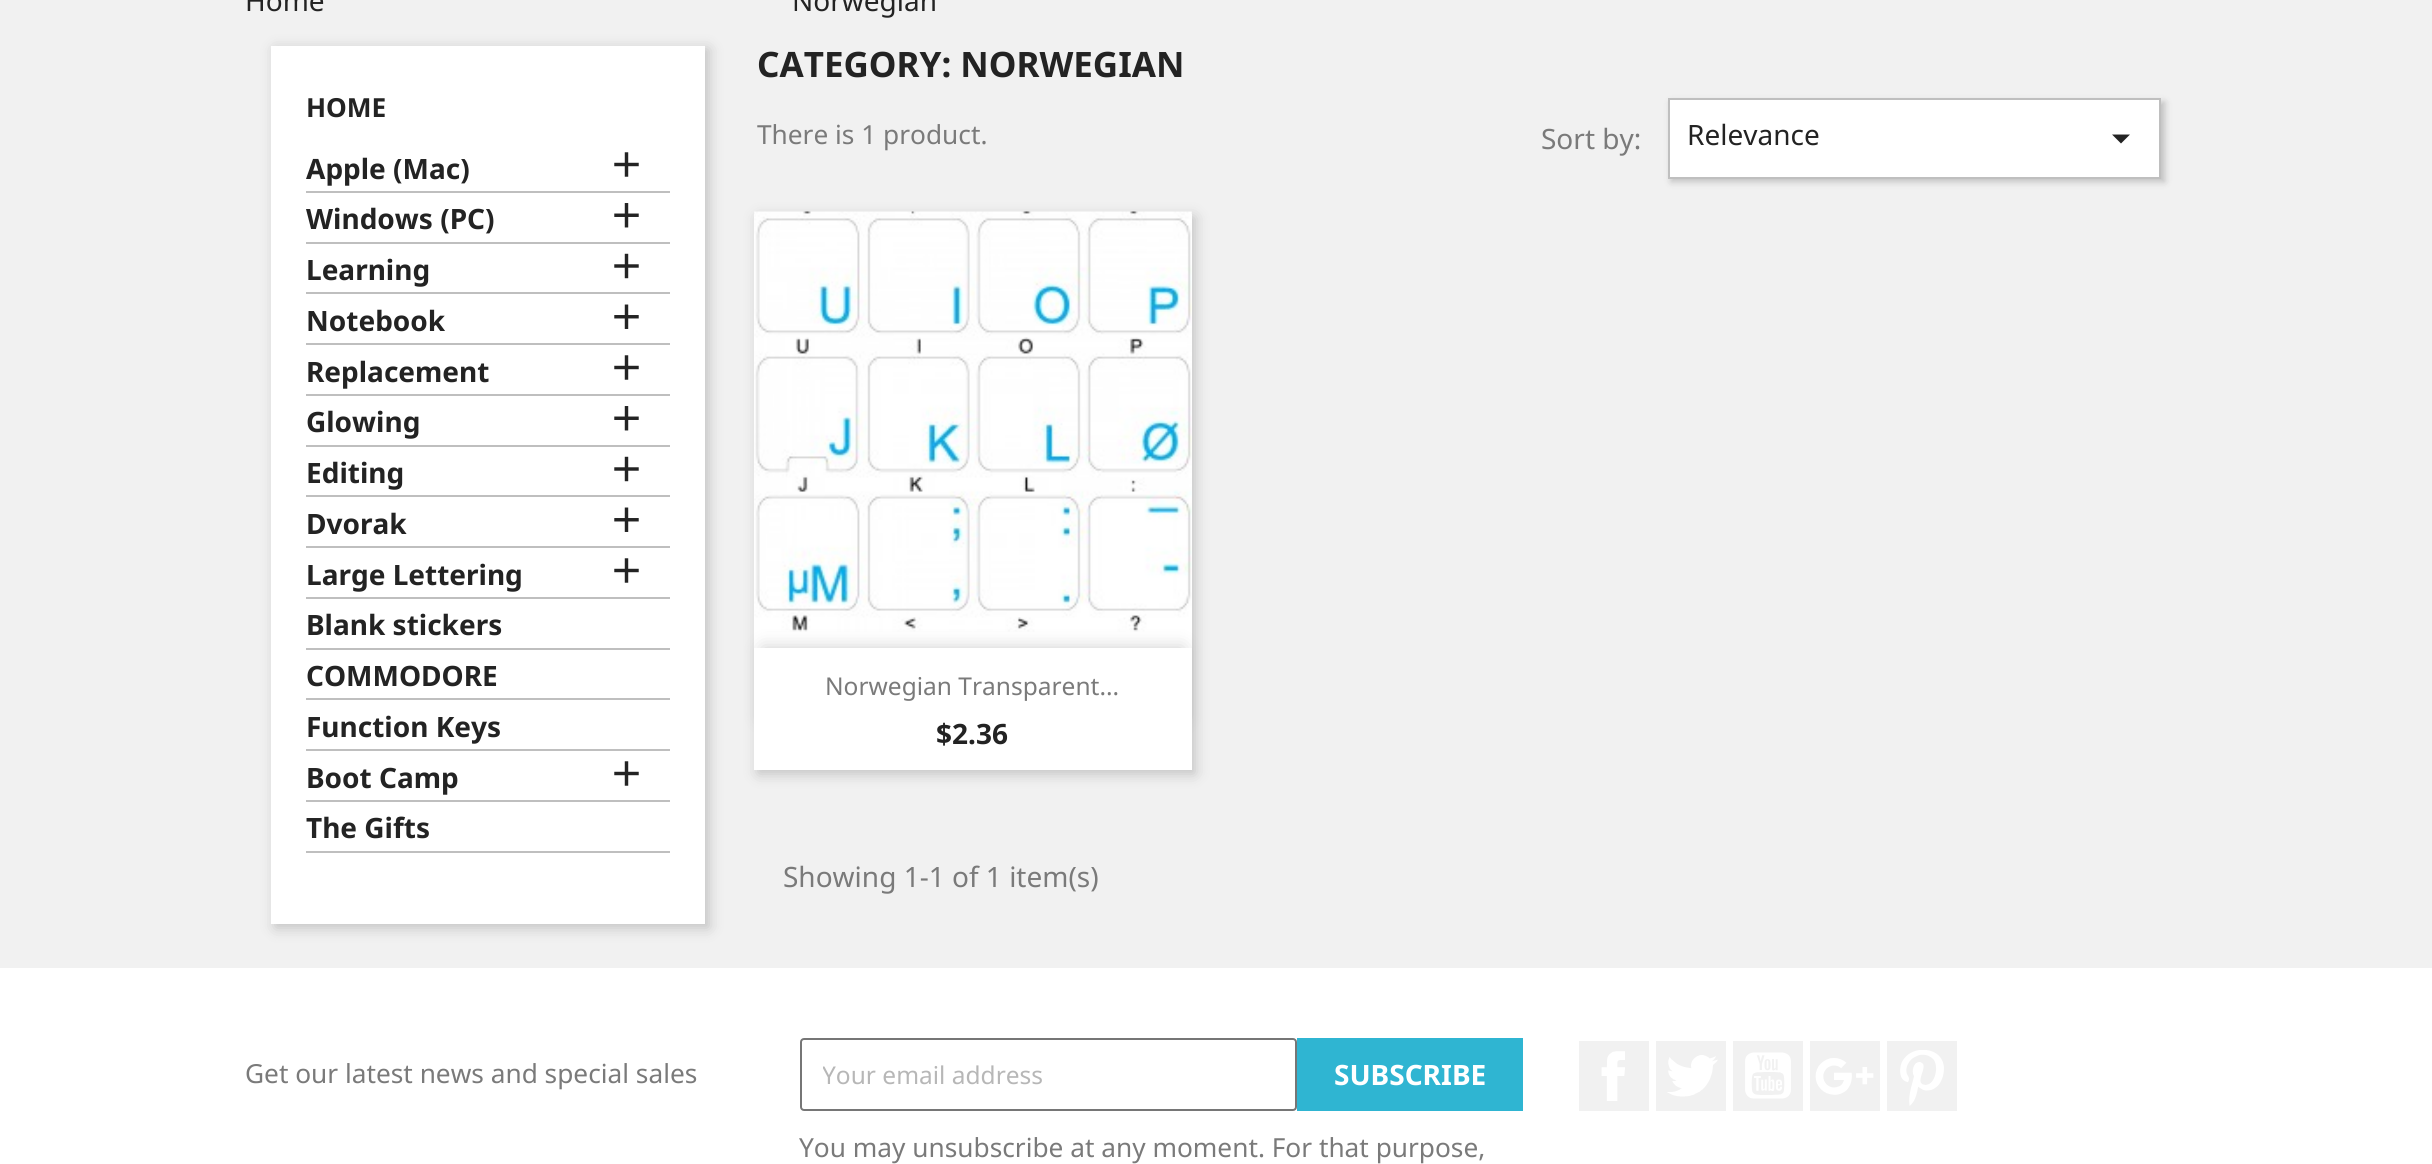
#include <cairo.h>
#include <math.h>
#include <stddef.h>


static void rgb(cairo_t *cr, int r, int g, int b)
{
	cairo_set_source_rgb(cr, r / 255.0, g / 255.0, b / 255.0);
}

static void face(cairo_t *cr, const char *family, double size, int italic, int bold)
{
	cairo_select_font_face(cr, family, italic ? CAIRO_FONT_SLANT_ITALIC : CAIRO_FONT_SLANT_NORMAL,
		bold ? CAIRO_FONT_WEIGHT_BOLD : CAIRO_FONT_WEIGHT_NORMAL);
	cairo_set_font_size(cr, size);
}

static void label(cairo_t *cr, double x, double y, const char *s)
{
	cairo_move_to(cr, x, y);
	cairo_show_text(cr, s);
}

static void rect(cairo_t *cr, double x, double y, double w, double h)
{
	cairo_rectangle(cr, x, y, w, h);
	cairo_fill(cr);
}

static void rrect(cairo_t *cr, double x, double y, double w, double h, double r)
{
	cairo_new_sub_path(cr);
	cairo_arc(cr, x + w - r, y + h - r, r, 0, M_PI / 2);
	cairo_arc(cr, x + r, y + h - r, r, M_PI / 2, M_PI);
	cairo_arc(cr, x + r, y + r, r, M_PI, 1.5 * M_PI);
	cairo_arc(cr, x + w - r, y + r, r, 1.5 * M_PI, 2 * M_PI);
	cairo_close_path(cr);
}

static void soft_shadow(cairo_t *cr, double x, double y, double w, double h, double r, double blur, double alpha)
{
	cairo_push_group_with_content(cr, CAIRO_CONTENT_ALPHA);
	cairo_set_operator(cr, CAIRO_OPERATOR_SOURCE);
	for (int i = 15; i >= -15 && fmin(w, h) + blur * i / 3 > 0; i -= 2) {
		double e = blur * i / 6;
		cairo_set_source_rgba(cr, 0, 0, 0, alpha * erfc((i - 1) / 8.5) / 2);
		rrect(cr, x - e, y - e, w + 2 * e, h + 2 * e, fmax(0, fmin(r + e + blur * .6, fmin(w, h) / 2 + e)));
		cairo_fill(cr);
	}
	cairo_pattern_t *soft = cairo_pop_group(cr);
	cairo_mask(cr, soft);
	cairo_pattern_destroy(soft);
}

static void image(cairo_t *cr, const char *path, double x, double y, double w, double h)
{
	cairo_surface_t *image = cairo_image_surface_create_from_png(path);
	cairo_save(cr);
	cairo_set_source_surface(cr, image, x, y);
	cairo_rectangle(cr, x, y, w, h);
	cairo_fill(cr);
	cairo_restore(cr);
	cairo_surface_destroy(image);
}

static void draw(cairo_t *cr) {
	rgb(cr, 255, 255, 255);
	cairo_paint(cr);
	rgb(cr, 241, 241, 241);
	rect(cr, 0, 0, 2432, 968);
	face(cr, "Noto Sans", 28, 0, 0);
	rgb(cr, 35, 35, 35);
	label(cr, 245, 11, "Home");
	label(cr, 792, 11, "Norwegian");
	rgb(cr, 0, 0, 0);
	soft_shadow(cr, 275, 49, 434, 879, 0, 7, 0.2);
	rgb(cr, 255, 255, 255);
	rect(cr, 271, 46, 434, 878);
	face(cr, "Noto Sans", 26.25, 0, 1);
	rgb(cr, 35, 35, 35);
	label(cr, 306, 117, "HOME");
	rgb(cr, 191, 191, 191);
	rect(cr, 306, 191, 364, 2);
	face(cr, "Noto Sans", 28, 0, 1);
	rgb(cr, 35, 35, 35);
	label(cr, 306, 179, "Apple (Mac)");
	image(cr, "image0.png", 614, 152, 25, 25);
	rgb(cr, 191, 191, 191);
	rect(cr, 306, 242, 364, 2);
	rgb(cr, 35, 35, 35);
	label(cr, 306, 229, "Windows (PC)");
	image(cr, "image1.png", 614, 203, 25, 25);
	rgb(cr, 191, 191, 191);
	rect(cr, 306, 292, 364, 2);
	rgb(cr, 35, 35, 35);
	label(cr, 306, 280, "Learning");
	image(cr, "image2.png", 614, 253, 25, 26);
	rgb(cr, 191, 191, 191);
	rect(cr, 306, 343, 364, 2);
	rgb(cr, 35, 35, 35);
	label(cr, 306, 331, "Notebook");
	image(cr, "image3.png", 614, 304, 25, 25);
	rgb(cr, 191, 191, 191);
	rect(cr, 306, 394, 364, 2);
	rgb(cr, 35, 35, 35);
	label(cr, 306, 382, "Replacement");
	image(cr, "image0.png", 614, 355, 25, 25);
	rgb(cr, 191, 191, 191);
	rect(cr, 306, 445, 364, 2);
	rgb(cr, 35, 35, 35);
	label(cr, 306, 432, "Glowing");
	image(cr, "image1.png", 614, 406, 25, 25);
	rgb(cr, 191, 191, 191);
	rect(cr, 306, 495, 364, 2);
	rgb(cr, 35, 35, 35);
	label(cr, 306, 483, "Editing");
	image(cr, "image2.png", 614, 456, 25, 26);
	rgb(cr, 191, 191, 191);
	rect(cr, 306, 546, 364, 2);
	rgb(cr, 35, 35, 35);
	label(cr, 306, 534, "Dvorak");
	image(cr, "image3.png", 614, 507, 25, 25);
	rgb(cr, 191, 191, 191);
	rect(cr, 306, 597, 364, 2);
	rgb(cr, 35, 35, 35);
	label(cr, 306, 585, "Large Lettering");
	image(cr, "image0.png", 614, 558, 25, 25);
	rgb(cr, 191, 191, 191);
	rect(cr, 306, 648, 364, 2);
	rgb(cr, 35, 35, 35);
	label(cr, 306, 635, "Blank stickers");
	rgb(cr, 191, 191, 191);
	rect(cr, 306, 698, 364, 2);
	rgb(cr, 35, 35, 35);
	label(cr, 306, 686, "COMMODORE");
	rgb(cr, 191, 191, 191);
	rect(cr, 306, 749, 364, 2);
	rgb(cr, 35, 35, 35);
	label(cr, 306, 737, "Function Keys");
	rgb(cr, 191, 191, 191);
	rect(cr, 306, 800, 364, 2);
	rgb(cr, 35, 35, 35);
	label(cr, 306, 788, "Boot Camp");
	image(cr, "image0.png", 614, 761, 25, 25);
	rgb(cr, 191, 191, 191);
	rect(cr, 306, 851, 364, 2);
	rgb(cr, 35, 35, 35);
	label(cr, 306, 838, "The Gifts");
	face(cr, "Noto Sans", 35, 0, 1);
	label(cr, 757, 77, "CATEGORY: NORWEGIAN");
	face(cr, "Noto Sans", 26.25, 0, 0);
	rgb(cr, 122, 122, 122);
	label(cr, 757, 144, "There is 1 product.");
	face(cr, "Noto Sans", 28, 0, 0);
	label(cr, 1541, 149, "Sort by:");
	rgb(cr, 0, 0, 0);
	soft_shadow(cr, 1671, 102, 494, 80, 0, 3.5, 0.2);
	rgb(cr, 255, 255, 255);
	cairo_rectangle(cr, 1669, 99, 491, 79);
	cairo_fill_preserve(cr);
	rgb(cr, 191, 191, 191);
	cairo_stroke(cr);
	rgb(cr, 35, 35, 35);
	label(cr, 1687, 145, "Relevance");
	cairo_new_path(cr);
	cairo_move_to(cr, 2112, 134.5);
	cairo_line_to(cr, 2130, 134.5);
	cairo_line_to(cr, 2121, 143.5);
	cairo_close_path(cr);
	cairo_fill(cr);
	rgb(cr, 0, 0, 0);
	soft_shadow(cr, 758, 217, 437, 557, 0, 7, 0.2);
	rgb(cr, 255, 255, 255);
	rect(cr, 754, 214, 438, 434);
	image(cr, "image4.png", 754, 211, 438, 421);
	rgb(cr, 0, 0, 0);
	soft_shadow(cr, 763, 648, 420, 70, 0, 9, 0.2);
	rgb(cr, 255, 255, 255);
	rect(cr, 754, 648, 438, 122);
	face(cr, "Noto Sans", 24.5, 0, 0);
	rgb(cr, 122, 122, 122);
	label(cr, 825, 695, "Norwegian Transparent...");
	face(cr, "Noto Sans", 28, 0, 1);
	rgb(cr, 35, 35, 35);
	label(cr, 936, 744, "$2.36");
	face(cr, "Noto Sans", 28, 0, 0);
	rgb(cr, 122, 122, 122);
	label(cr, 783, 887, "Showing 1-1 of 1 item(s)");
	face(cr, "Noto Sans", 26.25, 0, 0);
	label(cr, 245, 1083, "Get our latest news and special sales");
	rrect(cr, 801, 1039, 495, 71, 3);
	rgb(cr, 118, 118, 118);
	cairo_stroke(cr);
	cairo_save(cr);
	cairo_rectangle(cr, 823, 1059, 451, 33);
	cairo_clip(cr);
	face(cr, "Noto Sans", 24.5, 0, 0);
	rgb(cr, 183, 183, 183);
	label(cr, 822, 1084, "Your email address");
	cairo_restore(cr);
	rgb(cr, 47, 181, 210);
	rect(cr, 1297, 1038, 226, 73);
	face(cr, "Noto Sans", 28, 0, 1);
	rgb(cr, 255, 255, 255);
	label(cr, 1334, 1085, "SUBSCRIBE");
	face(cr, "Noto Sans", 26.25, 0, 0);
	rgb(cr, 122, 122, 122);
	label(cr, 799, 1157, "You may unsubscribe at any moment. For that purpose,");
	rgb(cr, 241, 241, 241);
	rect(cr, 1579, 1041, 70, 70);
	image(cr, "image5.png", 1601, 1051, 24, 50);
	rect(cr, 1656, 1041, 70, 70);
	image(cr, "image6.png", 1667, 1055, 51, 42);
	rect(cr, 1733, 1041, 70, 70);
	image(cr, "image7.png", 1745, 1052, 46, 47);
	rect(cr, 1810, 1041, 70, 70);
	image(cr, "image8.png", 1815, 1058, 59, 37);
	rect(cr, 1887, 1041, 70, 70);
	image(cr, "image9.png", 1900, 1050, 44, 56);
}

int main(void) {
	cairo_surface_t *surface = cairo_image_surface_create(CAIRO_FORMAT_RGB24, 2432, 1164);
	cairo_t *cr = cairo_create(surface);
	cairo_font_options_t *options = cairo_font_options_create();
	cairo_font_options_set_hint_metrics(options, CAIRO_HINT_METRICS_OFF);
	cairo_font_options_set_hint_style(options, CAIRO_HINT_STYLE_NONE);
	cairo_set_font_options(cr, options);
	cairo_set_miter_limit(cr, 4);
	draw(cr);
	cairo_surface_write_to_png(surface, "render.png");
	cairo_font_options_destroy(options);
	cairo_destroy(cr);
	cairo_surface_destroy(surface);
	return 0;
}
